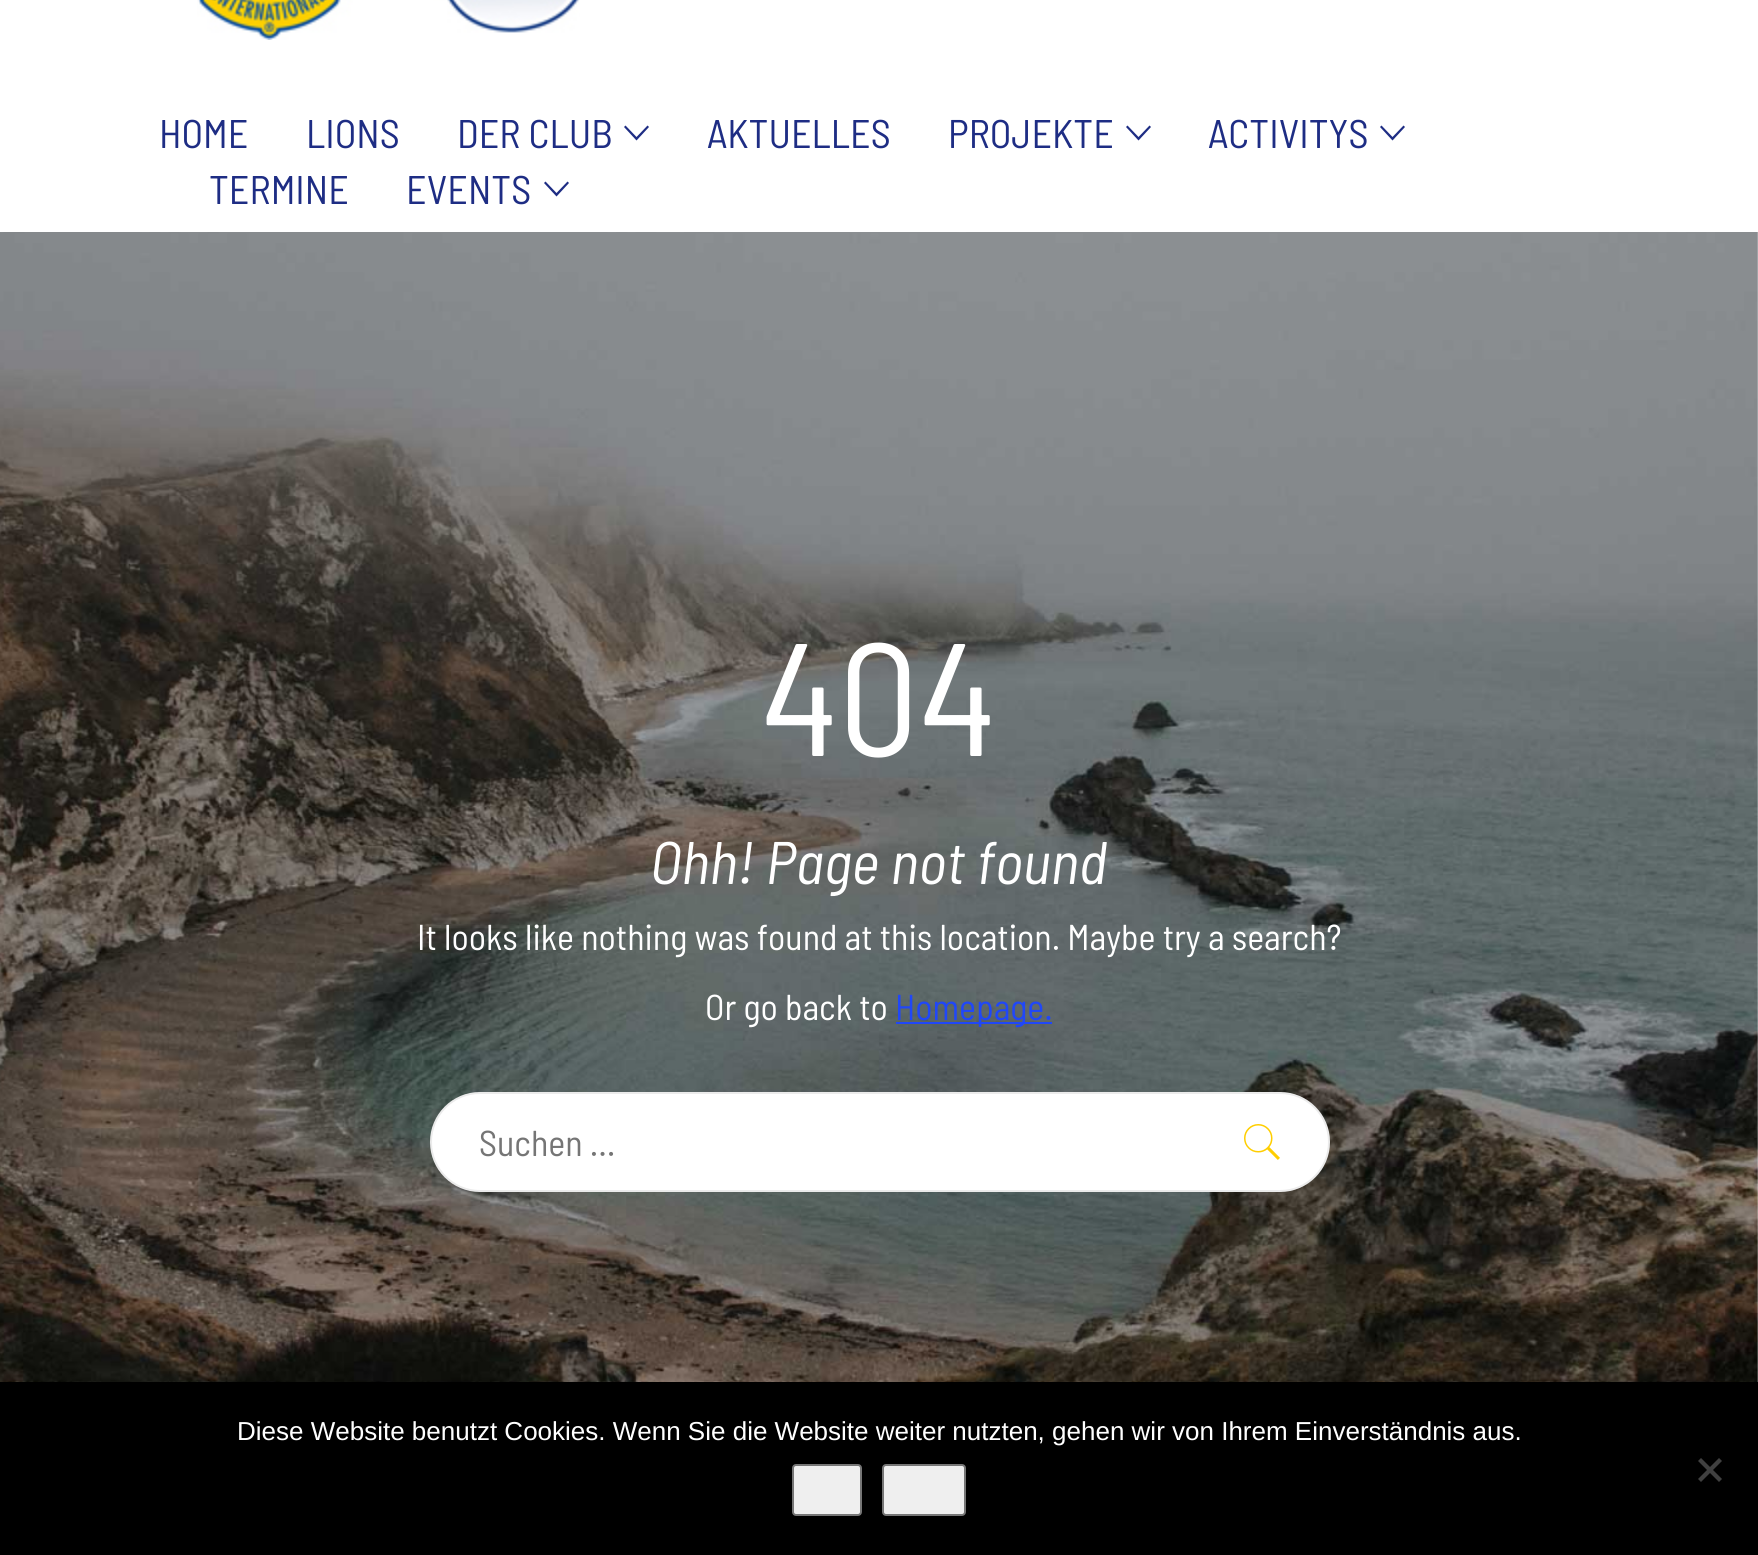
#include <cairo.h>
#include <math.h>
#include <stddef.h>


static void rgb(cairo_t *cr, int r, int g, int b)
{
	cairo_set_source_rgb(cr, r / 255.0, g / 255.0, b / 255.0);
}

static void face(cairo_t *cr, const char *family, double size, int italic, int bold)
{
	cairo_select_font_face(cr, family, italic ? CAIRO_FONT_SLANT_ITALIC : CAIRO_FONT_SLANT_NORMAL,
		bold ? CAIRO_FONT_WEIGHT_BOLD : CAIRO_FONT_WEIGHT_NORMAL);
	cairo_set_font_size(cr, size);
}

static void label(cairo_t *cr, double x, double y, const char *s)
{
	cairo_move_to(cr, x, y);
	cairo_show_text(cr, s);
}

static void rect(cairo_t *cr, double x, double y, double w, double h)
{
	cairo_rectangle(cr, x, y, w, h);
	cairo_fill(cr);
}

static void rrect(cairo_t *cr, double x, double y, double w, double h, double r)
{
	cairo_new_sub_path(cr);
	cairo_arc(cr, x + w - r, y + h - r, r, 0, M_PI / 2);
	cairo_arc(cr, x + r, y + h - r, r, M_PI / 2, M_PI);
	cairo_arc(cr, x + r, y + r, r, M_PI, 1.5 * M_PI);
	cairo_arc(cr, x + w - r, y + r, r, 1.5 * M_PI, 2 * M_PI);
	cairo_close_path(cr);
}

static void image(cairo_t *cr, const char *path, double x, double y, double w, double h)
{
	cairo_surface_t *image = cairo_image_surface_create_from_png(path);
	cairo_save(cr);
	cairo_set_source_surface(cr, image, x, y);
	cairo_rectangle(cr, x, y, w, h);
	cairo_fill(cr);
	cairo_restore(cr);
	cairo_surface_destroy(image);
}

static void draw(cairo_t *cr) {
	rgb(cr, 255, 255, 255);
	cairo_paint(cr);
	image(cr, "image0.png", 0, 232, 1758, 1150);
	image(cr, "image1.png", 197, 0, 383, 40);
	face(cr, "Barlow Semi Condensed", 40, 0, 0);
	rgb(cr, 30, 45, 132);
	label(cr, 159, 148, "HOME");
	label(cr, 306, 148, "LIONS");
	label(cr, 457, 148, "DER CLUB");
	cairo_new_path(cr);
	cairo_move_to(cr, 647.5, 125.5);
	cairo_line_to(cr, 649, 127);
	cairo_line_to(cr, 636.5, 140.5);
	cairo_line_to(cr, 624, 127);
	cairo_line_to(cr, 625.5, 125.5);
	cairo_line_to(cr, 636.5, 137);
	cairo_close_path(cr);
	cairo_fill(cr);
	label(cr, 707, 148, "AKTUELLES");
	label(cr, 948, 148, "PROJEKTE");
	cairo_new_path(cr);
	cairo_move_to(cr, 1149.5, 125.5);
	cairo_line_to(cr, 1151, 127);
	cairo_line_to(cr, 1138.5, 140.5);
	cairo_line_to(cr, 1126, 127);
	cairo_line_to(cr, 1127.5, 125.5);
	cairo_line_to(cr, 1138.5, 137);
	cairo_close_path(cr);
	cairo_fill(cr);
	label(cr, 1208, 148, "ACTIVITYS");
	cairo_new_path(cr);
	cairo_move_to(cr, 1403.5, 125.5);
	cairo_line_to(cr, 1405, 127);
	cairo_line_to(cr, 1392.5, 140.5);
	cairo_line_to(cr, 1380, 127);
	cairo_line_to(cr, 1381.5, 125.5);
	cairo_line_to(cr, 1392.5, 137);
	cairo_close_path(cr);
	cairo_fill(cr);
	label(cr, 209, 204, "TERMINE");
	label(cr, 406, 204, "EVENTS");
	cairo_new_path(cr);
	cairo_move_to(cr, 567.5, 181.5);
	cairo_line_to(cr, 569, 183);
	cairo_line_to(cr, 556.5, 196.5);
	cairo_line_to(cr, 544, 183);
	cairo_line_to(cr, 545.5, 181.5);
	cairo_line_to(cr, 556.5, 193);
	cairo_close_path(cr);
	cairo_fill(cr);
	face(cr, "Barlow Semi Condensed", 160, 0, 0);
	rgb(cr, 255, 255, 255);
	label(cr, 761, 756, "404");
	face(cr, "Barlow Semi Condensed", 60, 1, 0);
	label(cr, 650, 884, "Ohh! Page not found");
	face(cr, "Barlow Semi Condensed", 36, 0, 0);
	label(cr, 417, 950, "It looks like nothing was found at this location. Maybe try a search?");
	label(cr, 705, 1020, "Or go back to");
	rgb(cr, 32, 71, 248);
	rect(cr, 896, 1022, 156, 2);
	label(cr, 895, 1020, "Homepage.");
	rgb(cr, 255, 255, 255);
	rrect(cr, 430, 1092, 900, 100, 50);
	cairo_fill(cr);
	rrect(cr, 431, 1093, 898, 98, 49);
	cairo_set_source_rgba(cr, 0.208, 0.208, 0.208, 0.1);
	cairo_stroke(cr);
	rgb(cr, 117, 117, 117);
	label(cr, 479, 1156, "Suchen …");
	image(cr, "image2.png", 1244, 1124, 36, 36);
	rgb(cr, 0, 0, 0);
	rect(cr, 0, 1382, 1758, 173);
	face(cr, "Liberation Sans", 26, 0, 0);
	rgb(cr, 255, 255, 255);
	label(cr, 237, 1440, "Diese Website benutzt Cookies. Wenn Sie die Website weiter nutzten, gehen wir von Ihrem Einverständnis aus.");
	rgb(cr, 239, 239, 239);
	rrect(cr, 793, 1465, 68, 50, 3);
	cairo_fill_preserve(cr);
	rgb(cr, 118, 118, 118);
	cairo_stroke(cr);
	rgb(cr, 239, 239, 239);
	rrect(cr, 883, 1465, 82, 50, 3);
	cairo_fill_preserve(cr);
	rgb(cr, 118, 118, 118);
	cairo_stroke(cr);
	rgb(cr, 64, 64, 64);
	cairo_new_path(cr);
	cairo_move_to(cr, 1719, 1458);
	cairo_line_to(cr, 1722, 1461);
	cairo_line_to(cr, 1701, 1482);
	cairo_line_to(cr, 1698, 1479);
	cairo_close_path(cr);
	cairo_fill(cr);
	cairo_new_path(cr);
	cairo_move_to(cr, 1698, 1461);
	cairo_line_to(cr, 1701, 1458);
	cairo_line_to(cr, 1722, 1479);
	cairo_line_to(cr, 1719, 1482);
	cairo_close_path(cr);
	cairo_fill(cr);
}

int main(void) {
	cairo_surface_t *surface = cairo_image_surface_create(CAIRO_FORMAT_RGB24, 1758, 1555);
	cairo_t *cr = cairo_create(surface);
	cairo_font_options_t *options = cairo_font_options_create();
	cairo_font_options_set_hint_metrics(options, CAIRO_HINT_METRICS_OFF);
	cairo_font_options_set_hint_style(options, CAIRO_HINT_STYLE_NONE);
	cairo_set_font_options(cr, options);
	cairo_set_miter_limit(cr, 4);
	draw(cr);
	cairo_surface_write_to_png(surface, "render.png");
	cairo_font_options_destroy(options);
	cairo_destroy(cr);
	cairo_surface_destroy(surface);
	return 0;
}
